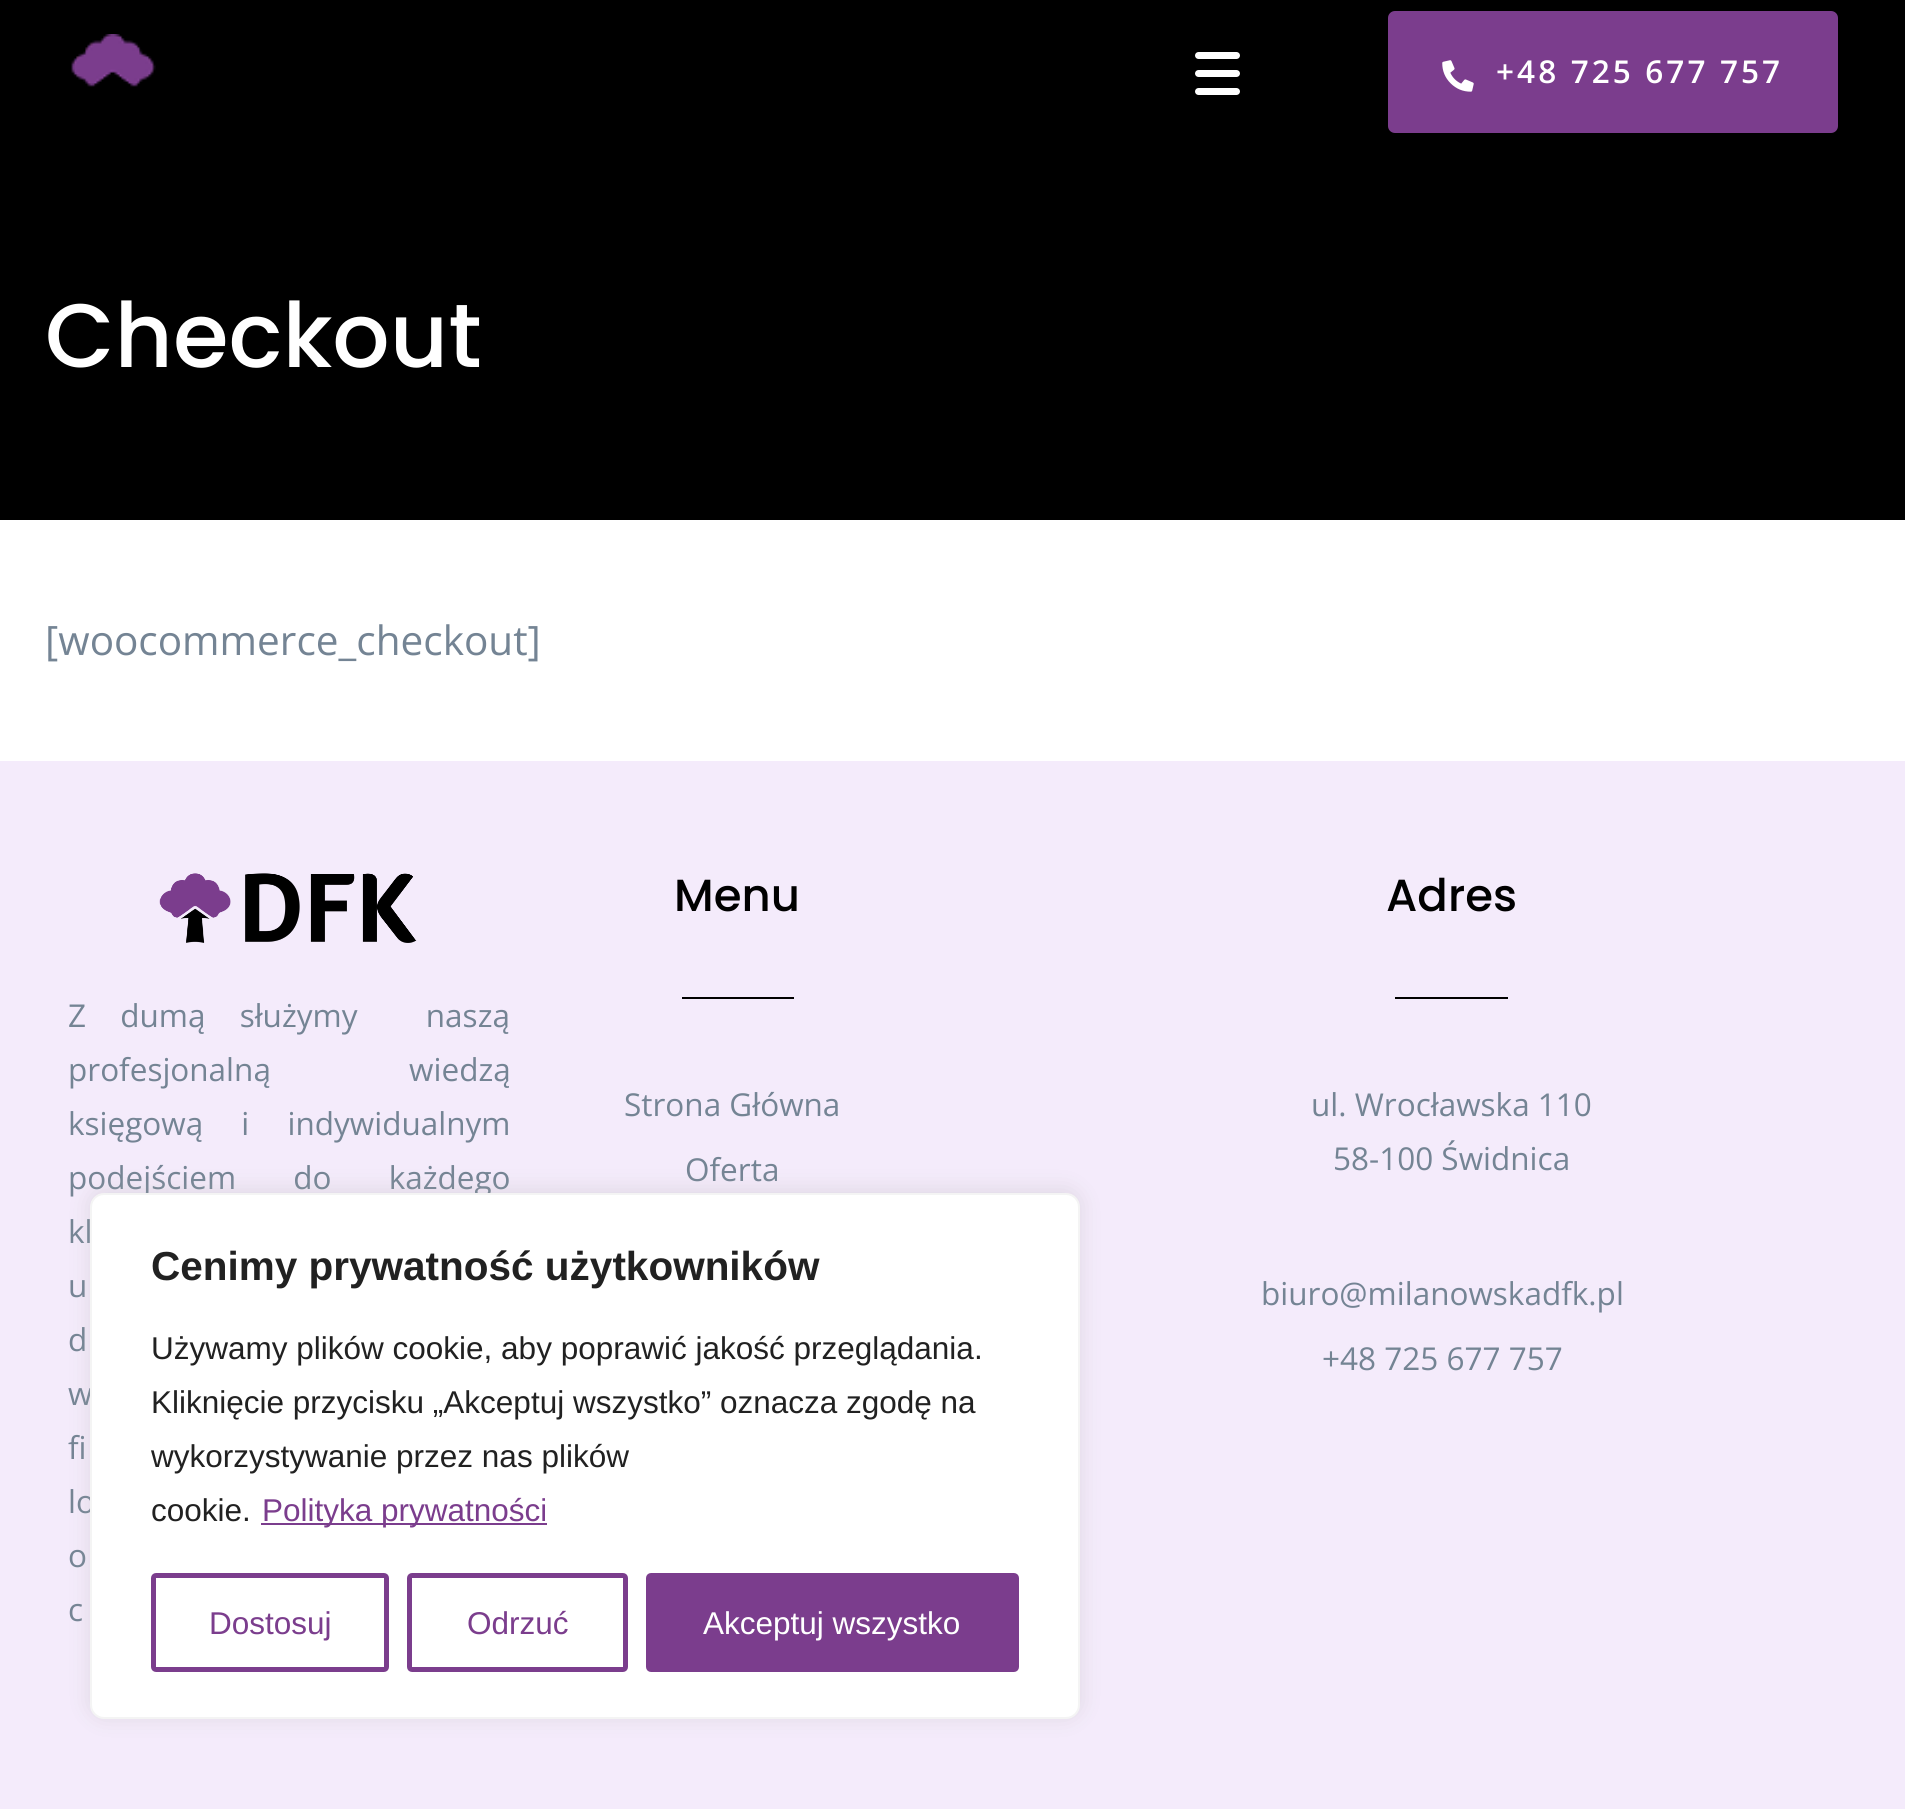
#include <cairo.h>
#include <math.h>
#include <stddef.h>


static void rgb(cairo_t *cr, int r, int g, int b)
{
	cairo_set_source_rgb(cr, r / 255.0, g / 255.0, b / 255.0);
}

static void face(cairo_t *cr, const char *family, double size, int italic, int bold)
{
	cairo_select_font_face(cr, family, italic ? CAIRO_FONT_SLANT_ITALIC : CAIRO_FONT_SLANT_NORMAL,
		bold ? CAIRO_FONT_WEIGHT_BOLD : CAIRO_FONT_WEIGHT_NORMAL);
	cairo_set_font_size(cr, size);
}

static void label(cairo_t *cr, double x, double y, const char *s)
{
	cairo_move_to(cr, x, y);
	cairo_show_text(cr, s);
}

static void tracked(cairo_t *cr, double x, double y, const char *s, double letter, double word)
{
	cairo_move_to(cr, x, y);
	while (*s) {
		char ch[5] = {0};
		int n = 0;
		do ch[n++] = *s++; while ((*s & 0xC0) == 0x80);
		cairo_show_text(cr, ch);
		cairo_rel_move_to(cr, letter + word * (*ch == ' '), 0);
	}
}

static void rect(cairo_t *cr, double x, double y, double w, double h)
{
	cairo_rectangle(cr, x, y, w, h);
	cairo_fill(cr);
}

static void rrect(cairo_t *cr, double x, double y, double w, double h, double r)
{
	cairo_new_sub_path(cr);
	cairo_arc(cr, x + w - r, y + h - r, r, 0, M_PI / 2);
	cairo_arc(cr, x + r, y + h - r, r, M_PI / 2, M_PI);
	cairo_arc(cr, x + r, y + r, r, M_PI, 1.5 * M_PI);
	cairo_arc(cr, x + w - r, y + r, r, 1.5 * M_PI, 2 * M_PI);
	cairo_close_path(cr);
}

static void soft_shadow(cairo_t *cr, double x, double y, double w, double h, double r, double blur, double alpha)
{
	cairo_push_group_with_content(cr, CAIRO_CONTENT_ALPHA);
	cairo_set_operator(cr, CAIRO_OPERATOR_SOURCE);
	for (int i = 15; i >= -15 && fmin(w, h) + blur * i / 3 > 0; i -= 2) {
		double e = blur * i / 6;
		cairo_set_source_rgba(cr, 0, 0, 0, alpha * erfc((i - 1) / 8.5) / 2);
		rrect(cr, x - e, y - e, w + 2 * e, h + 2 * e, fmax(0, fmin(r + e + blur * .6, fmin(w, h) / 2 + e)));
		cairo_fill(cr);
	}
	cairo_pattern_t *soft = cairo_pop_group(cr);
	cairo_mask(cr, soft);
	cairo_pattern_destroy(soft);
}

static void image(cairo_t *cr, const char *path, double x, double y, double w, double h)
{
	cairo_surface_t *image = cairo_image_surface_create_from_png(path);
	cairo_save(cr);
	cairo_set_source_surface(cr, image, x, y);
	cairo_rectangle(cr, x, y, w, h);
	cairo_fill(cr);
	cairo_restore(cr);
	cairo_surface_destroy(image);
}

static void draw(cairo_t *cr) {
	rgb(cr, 255, 255, 255);
	cairo_paint(cr);
	rgb(cr, 0, 0, 0);
	rect(cr, 0, 0, 1905, 520);
	image(cr, "image0.png", 71, 34, 85, 53);
	rgb(cr, 255, 255, 255);
	rrect(cr, 1195, 70, 45, 7, 3.5);
	cairo_fill(cr);
	rrect(cr, 1195, 52, 45, 7, 3.5);
	cairo_fill(cr);
	rrect(cr, 1195, 88, 45, 7, 3.5);
	cairo_fill(cr);
	rgb(cr, 123, 61, 141);
	rrect(cr, 1388, 11, 450, 122, 7);
	cairo_fill(cr);
	image(cr, "image1.png", 1442, 60, 32, 32);
	face(cr, "Open Sans SemiBold", 31.5, 0, 0);
	rgb(cr, 255, 255, 255);
	tracked(cr, 1496, 83, "+48 725 677 757", 3.1, 0);
	face(cr, "Poppins Medium", 90, 0, 0);
	label(cr, 45, 367, "Checkout");
	face(cr, "Open Sans", 40.5, 0, 0);
	rgb(cr, 116, 132, 148);
	label(cr, 45, 655, "[woocommerce_checkout]");
	rgb(cr, 244, 235, 251);
	rect(cr, 0, 761, 1905, 1048);
	image(cr, "image2.png", 159, 873, 258, 70);
	face(cr, "Open Sans", 31.5, 0, 0);
	rgb(cr, 116, 132, 148);
	tracked(cr, 68, 1027, "Z dumą służymy  naszą", 0, 26);
	tracked(cr, 68, 1081, "profesjonalną wiedzą", 0, 130);
	tracked(cr, 68, 1135, "księgową i indywidualnym", 0, 30);
	tracked(cr, 68, 1189, "podejściem do każdego", 0, 49);
	tracked(cr, 68, 1243, "kl", 0, 60);
	tracked(cr, 68, 1297, "u", 0, 137);
	tracked(cr, 68, 1351, "d", 0, 24);
	tracked(cr, 68, 1405, "w", 0, 48);
	tracked(cr, 68, 1459, "fi", 0, 118);
	tracked(cr, 68, 1513, "lo", 0, 16);
	tracked(cr, 68, 1567, "o", 0, 18);
	label(cr, 68, 1621, "c");
	face(cr, "Poppins Medium", 45, 0, 0);
	rgb(cr, 0, 0, 0);
	label(cr, 674, 911, "Menu");
	rect(cr, 682, 997, 112, 2);
	face(cr, "Open Sans", 31.5, 0, 0);
	rgb(cr, 116, 132, 148);
	label(cr, 624, 1116, "Strona Główna");
	label(cr, 685, 1181, "Oferta");
	face(cr, "Poppins Medium", 45, 0, 0);
	rgb(cr, 0, 0, 0);
	label(cr, 1386, 911, "Adres");
	rect(cr, 1395, 997, 113, 2);
	face(cr, "Open Sans", 31.5, 0, 0);
	rgb(cr, 116, 132, 148);
	label(cr, 1311, 1116, "ul. Wrocławska 110");
	label(cr, 1333, 1170, "58-100 Świdnica");
	label(cr, 1261, 1305, "biuro@milanowskadfk.pl");
	label(cr, 1322, 1370, "+48 725 677 757");
	rgb(cr, 172, 171, 171);
	soft_shadow(cr, 90, 1190, 990, 527, 14, 11, 0.3);
	rgb(cr, 255, 255, 255);
	rrect(cr, 91, 1194, 988, 524, 13);
	cairo_fill_preserve(cr);
	rgb(cr, 244, 244, 244);
	cairo_stroke(cr);
	face(cr, "Liberation Sans", 40.5, 0, 1);
	rgb(cr, 33, 33, 33);
	label(cr, 151, 1280, "Cenimy prywatność użytkowników");
	face(cr, "Liberation Sans", 31.5, 0, 0);
	label(cr, 151, 1359, "Używamy plików cookie, aby poprawić jakość przeglądania.");
	label(cr, 151, 1413, "Kliknięcie przycisku „Akceptuj wszystko” oznacza zgodę na");
	label(cr, 151, 1467, "wykorzystywanie przez nas plików");
	label(cr, 151, 1521, "cookie.");
	rgb(cr, 123, 61, 141);
	rect(cr, 261, 1523, 286, 2);
	label(cr, 262, 1521, "Polityka prywatności");
	rrect(cr, 153.5, 1575.5, 233, 94, 2.5);
	cairo_set_line_width(cr, 5);
	cairo_stroke(cr);
	label(cr, 209, 1634, "Dostosuj");
	rrect(cr, 409.5, 1575.5, 216, 94, 2.5);
	cairo_stroke(cr);
	label(cr, 467, 1634, "Odrzuć");
	rrect(cr, 648.5, 1575.5, 368, 94, 2.5);
	cairo_fill_preserve(cr);
	cairo_stroke(cr);
	rgb(cr, 255, 255, 255);
	label(cr, 703, 1634, "Akceptuj wszystko");
}

int main(void) {
	cairo_surface_t *surface = cairo_image_surface_create(CAIRO_FORMAT_RGB24, 1905, 1809);
	cairo_t *cr = cairo_create(surface);
	cairo_font_options_t *options = cairo_font_options_create();
	cairo_font_options_set_hint_metrics(options, CAIRO_HINT_METRICS_OFF);
	cairo_font_options_set_hint_style(options, CAIRO_HINT_STYLE_NONE);
	cairo_set_font_options(cr, options);
	cairo_set_miter_limit(cr, 4);
	draw(cr);
	cairo_surface_write_to_png(surface, "render.png");
	cairo_font_options_destroy(options);
	cairo_destroy(cr);
	cairo_surface_destroy(surface);
	return 0;
}
